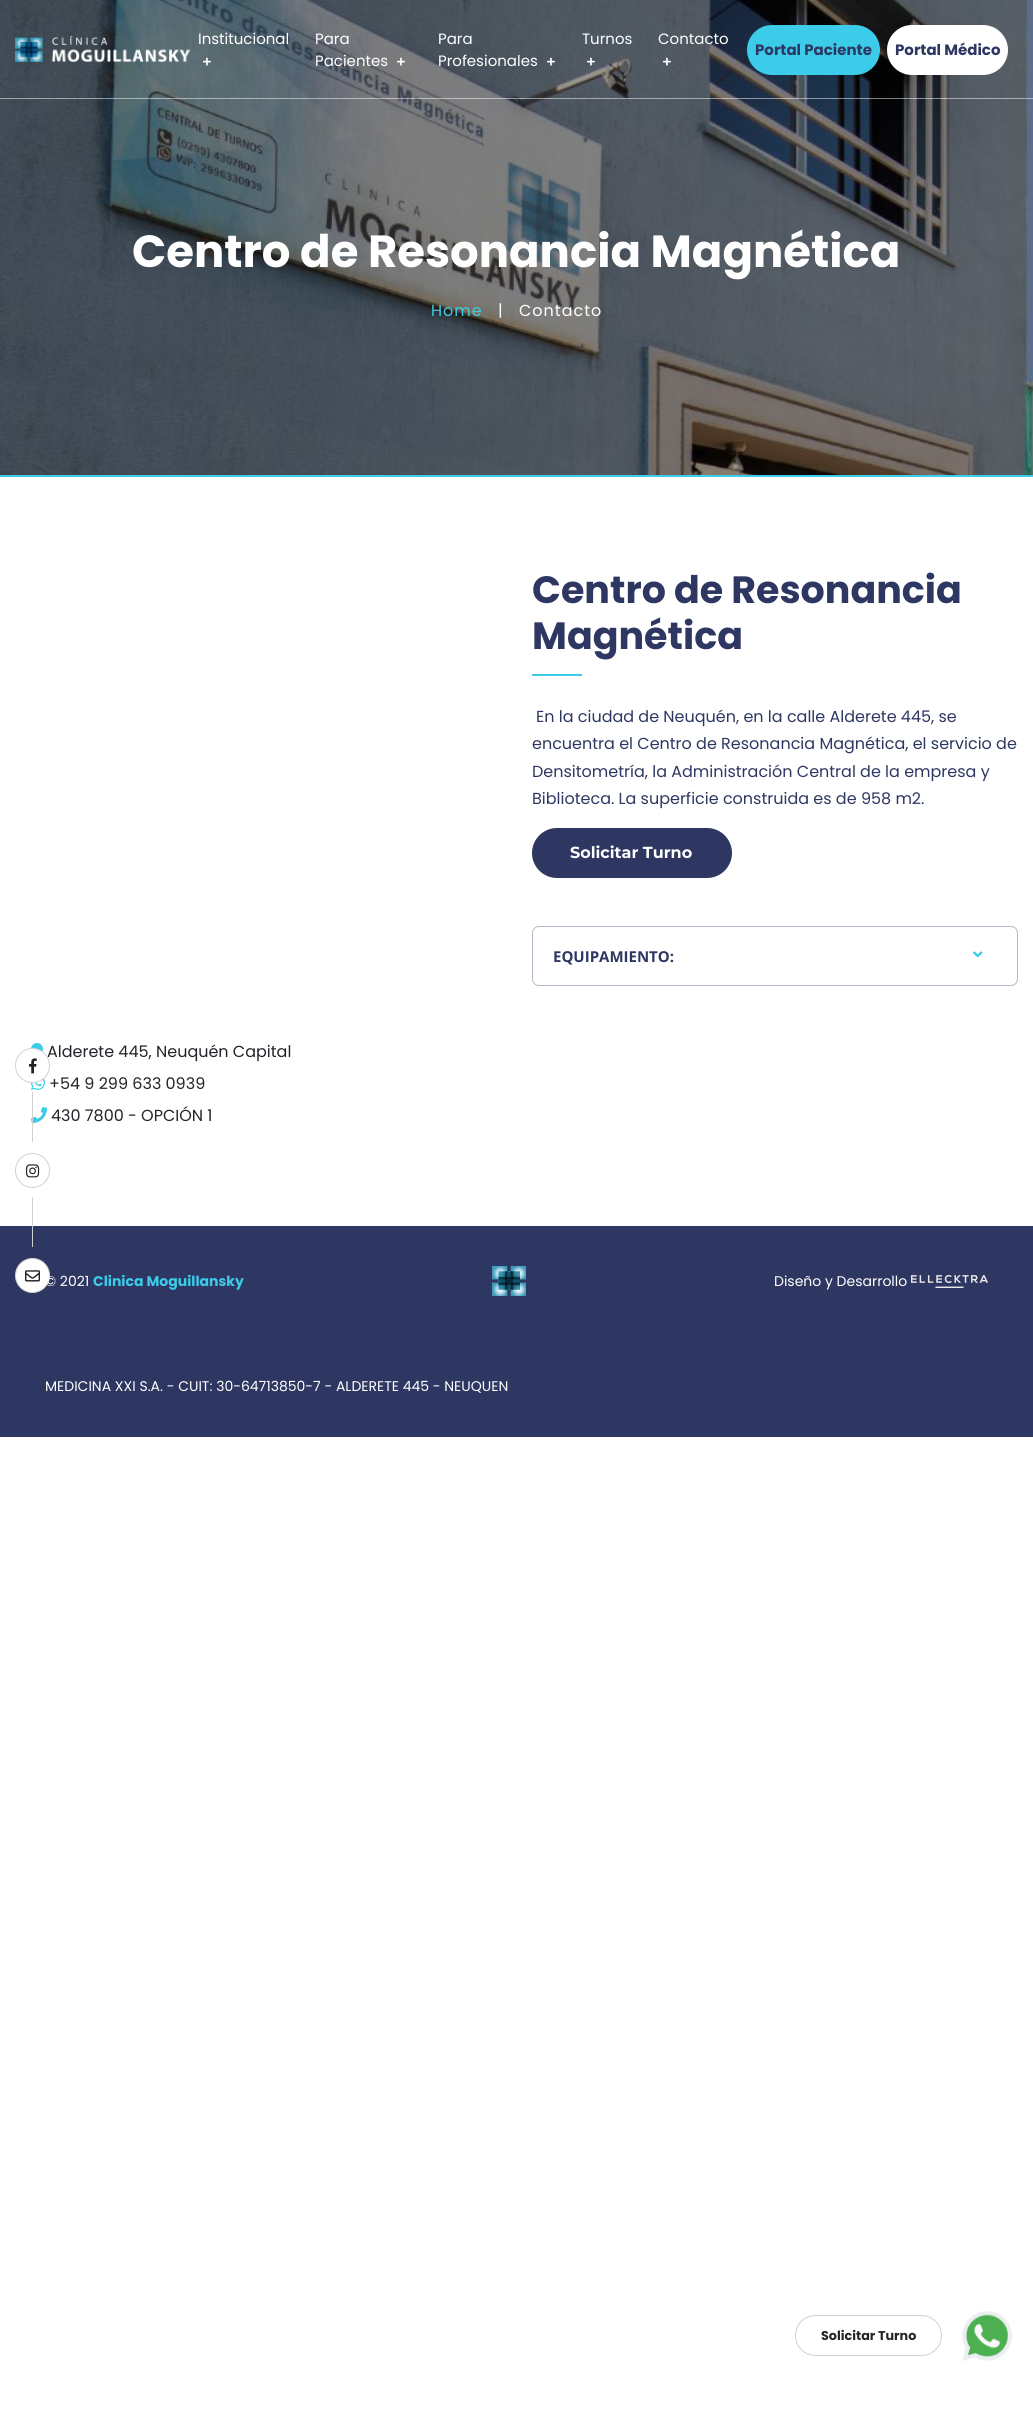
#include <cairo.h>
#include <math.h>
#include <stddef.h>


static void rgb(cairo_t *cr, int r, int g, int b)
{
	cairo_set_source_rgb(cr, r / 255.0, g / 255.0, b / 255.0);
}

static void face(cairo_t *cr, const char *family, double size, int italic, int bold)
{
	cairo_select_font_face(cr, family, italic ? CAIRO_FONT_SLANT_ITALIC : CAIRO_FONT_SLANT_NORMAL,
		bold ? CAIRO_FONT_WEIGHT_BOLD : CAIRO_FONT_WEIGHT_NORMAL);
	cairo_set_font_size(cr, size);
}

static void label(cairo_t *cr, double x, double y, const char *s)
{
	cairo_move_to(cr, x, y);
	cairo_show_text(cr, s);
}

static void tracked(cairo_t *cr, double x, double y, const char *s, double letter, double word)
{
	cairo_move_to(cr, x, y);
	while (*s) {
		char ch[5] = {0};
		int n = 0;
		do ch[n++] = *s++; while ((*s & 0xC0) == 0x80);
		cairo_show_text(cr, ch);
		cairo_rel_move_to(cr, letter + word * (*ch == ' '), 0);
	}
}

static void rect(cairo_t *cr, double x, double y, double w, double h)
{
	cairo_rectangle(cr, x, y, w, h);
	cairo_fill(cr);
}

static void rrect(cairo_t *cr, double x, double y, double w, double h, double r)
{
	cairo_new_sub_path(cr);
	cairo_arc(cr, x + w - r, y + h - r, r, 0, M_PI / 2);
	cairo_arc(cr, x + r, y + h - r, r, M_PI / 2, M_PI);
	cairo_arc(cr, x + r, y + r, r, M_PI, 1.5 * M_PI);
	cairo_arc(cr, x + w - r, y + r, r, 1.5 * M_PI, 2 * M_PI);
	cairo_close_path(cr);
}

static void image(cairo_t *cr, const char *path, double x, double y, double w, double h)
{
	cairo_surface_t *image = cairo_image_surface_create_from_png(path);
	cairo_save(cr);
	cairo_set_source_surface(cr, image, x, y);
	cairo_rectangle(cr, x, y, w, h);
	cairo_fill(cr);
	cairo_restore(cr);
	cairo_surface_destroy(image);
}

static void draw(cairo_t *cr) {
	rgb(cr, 255, 255, 255);
	cairo_paint(cr);
	image(cr, "image6.png", 0, 0, 1033, 475);
	cairo_set_source_rgba(cr, 1, 1, 1, 0.5);
	rect(cr, 0, 98, 1033, 1);
	image(cr, "image0.png", 15, 36, 175, 26);
	face(cr, "Poppins", 15, 0, 0);
	rgb(cr, 255, 255, 255);
	label(cr, 198, 44, "Institucional");
	image(cr, "image1.png", 203, 57, 8, 9);
	label(cr, 315, 44, "Para");
	label(cr, 315, 66, "Pacientes");
	image(cr, "image2.png", 397, 57, 8, 9);
	label(cr, 438, 44, "Para");
	label(cr, 438, 66, "Profesionales");
	image(cr, "image3.png", 547, 57, 8, 9);
	label(cr, 582, 44, "Turnos");
	image(cr, "image4.png", 587, 57, 8, 9);
	label(cr, 658, 44, "Contacto");
	image(cr, "image5.png", 663, 57, 8, 9);
	rgb(cr, 60, 203, 232);
	rrect(cr, 747, 25, 133, 50, 25);
	cairo_fill(cr);
	face(cr, "Poppins", 15, 0, 1);
	rgb(cr, 46, 55, 98);
	label(cr, 755, 55, "Portal Paciente");
	rgb(cr, 255, 255, 255);
	rrect(cr, 887, 25, 121, 50, 25);
	cairo_fill(cr);
	rgb(cr, 46, 55, 98);
	label(cr, 895, 55, "Portal Médico");
	rgb(cr, 60, 203, 232);
	rect(cr, 0, 475, 1033, 2);
	face(cr, "Poppins", 45, 0, 1);
	rgb(cr, 255, 255, 255);
	label(cr, 132, 267, "Centro de Resonancia Magnética");
	face(cr, "Poppins", 16, 0, 0);
	rgb(cr, 60, 203, 232);
	tracked(cr, 431, 316, "Home", 1, 0);
	rgb(cr, 255, 255, 255);
	tracked(cr, 498, 316, "|", 1, 0);
	tracked(cr, 519, 316, "Contacto", 1, 0);
	face(cr, "Poppins", 38, 0, 1);
	rgb(cr, 46, 55, 98);
	label(cr, 532, 603, "Centro de Resonancia");
	label(cr, 532, 649, "Magnética");
	rgb(cr, 60, 203, 232);
	rect(cr, 532, 674, 50, 2);
	face(cr, "Poppins", 16, 0, 0);
	rgb(cr, 46, 55, 98);
	label(cr, 536, 722, "En la ciudad de Neuquén, en la calle Alderete 445, se");
	label(cr, 532, 749, "encuentra el Centro de Resonancia Magnética, el servicio de");
	label(cr, 532, 777, "Densitometría, la Administración Central de la empresa y");
	label(cr, 532, 804, "Biblioteca. La superficie construida es de 958 m2.");
	rrect(cr, 532, 828, 200, 50, 25);
	cairo_fill(cr);
	face(cr, "Montserrat", 16, 0, 1);
	rgb(cr, 255, 255, 255);
	label(cr, 570, 858, "Solicitar Turno");
	rrect(cr, 532.5, 926.5, 485, 59, 6.5);
	rgb(cr, 179, 186, 201);
	cairo_set_line_width(cr, 1);
	cairo_stroke(cr);
	face(cr, "Open Sans", 15, 0, 1);
	rgb(cr, 46, 55, 98);
	label(cr, 553, 962, "EQUIPAMIENTO:");
	image(cr, "image7.png", 973, 951, 10, 7);
	image(cr, "image8.png", 31, 1043, 12, 9);
	face(cr, "Poppins", 16, 0, 0);
	rgb(cr, 33, 37, 41);
	label(cr, 47, 1057, "Alderete 445, Neuquén Capital");
	image(cr, "image9.png", 31, 1078, 14, 12);
	label(cr, 49, 1089, "+54 9 299 633 0939");
	image(cr, "image10.png", 31, 1107, 16, 16);
	label(cr, 51, 1121, "430 7800 - OPCIÓN 1");
	rgb(cr, 255, 255, 255);
	cairo_new_path(cr);
	cairo_arc(cr, 32.5, 1065.5, 17, 0, 2 * M_PI);
	cairo_fill_preserve(cr);
	rgb(cr, 209, 209, 209);
	cairo_stroke(cr);
	image(cr, "image11.png", 29, 1058, 8, 16);
	rect(cr, 32, 1092, 1, 50);
	cairo_arc(cr, 32.5, 1170.5, 17, 0, 2 * M_PI);
	cairo_stroke(cr);
	image(cr, "image12.png", 26, 1164, 14, 14);
	rgb(cr, 46, 55, 98);
	rect(cr, 0, 1226, 1033, 211);
	rgb(cr, 209, 209, 209);
	rect(cr, 32, 1197, 1, 50);
	rgb(cr, 255, 255, 255);
	cairo_arc(cr, 32.5, 1275.5, 17, 0, 2 * M_PI);
	cairo_fill_preserve(cr);
	rgb(cr, 209, 209, 209);
	cairo_stroke(cr);
	image(cr, "image13.png", 25, 1270, 15, 12);
	face(cr, "Poppins", 14, 0, 0);
	rgb(cr, 255, 255, 255);
	label(cr, 45, 1286, "© 2021");
	face(cr, "Poppins", 14, 0, 1);
	rgb(cr, 60, 203, 232);
	label(cr, 93, 1286, "Clinica Moguillansky");
	image(cr, "image14.png", 492, 1266, 34, 30);
	face(cr, "Poppins", 14, 0, 0);
	rgb(cr, 255, 255, 255);
	label(cr, 774, 1286, "Diseño y Desarrollo");
	image(cr, "image15.png", 911, 1275, 77, 13);
	label(cr, 45, 1391, "MEDICINA XXI S.A. - CUIT: 30-64713850-7 - ALDERETE 445 - NEUQUEN");
	rrect(cr, 795.5, 2315.5, 146, 40, 20);
	rgb(cr, 209, 209, 209);
	cairo_stroke(cr);
	face(cr, "Poppins", 12.75, 0, 1);
	rgb(cr, 33, 37, 41);
	label(cr, 821, 2340, "Solicitar Turno");
	image(cr, "image16.png", 962, 2311, 50, 50);
}

int main(void) {
	cairo_surface_t *surface = cairo_image_surface_create(CAIRO_FORMAT_RGB24, 1033, 2409);
	cairo_t *cr = cairo_create(surface);
	cairo_font_options_t *options = cairo_font_options_create();
	cairo_font_options_set_hint_metrics(options, CAIRO_HINT_METRICS_OFF);
	cairo_font_options_set_hint_style(options, CAIRO_HINT_STYLE_NONE);
	cairo_set_font_options(cr, options);
	cairo_set_miter_limit(cr, 4);
	draw(cr);
	cairo_surface_write_to_png(surface, "render.png");
	cairo_font_options_destroy(options);
	cairo_destroy(cr);
	cairo_surface_destroy(surface);
	return 0;
}
